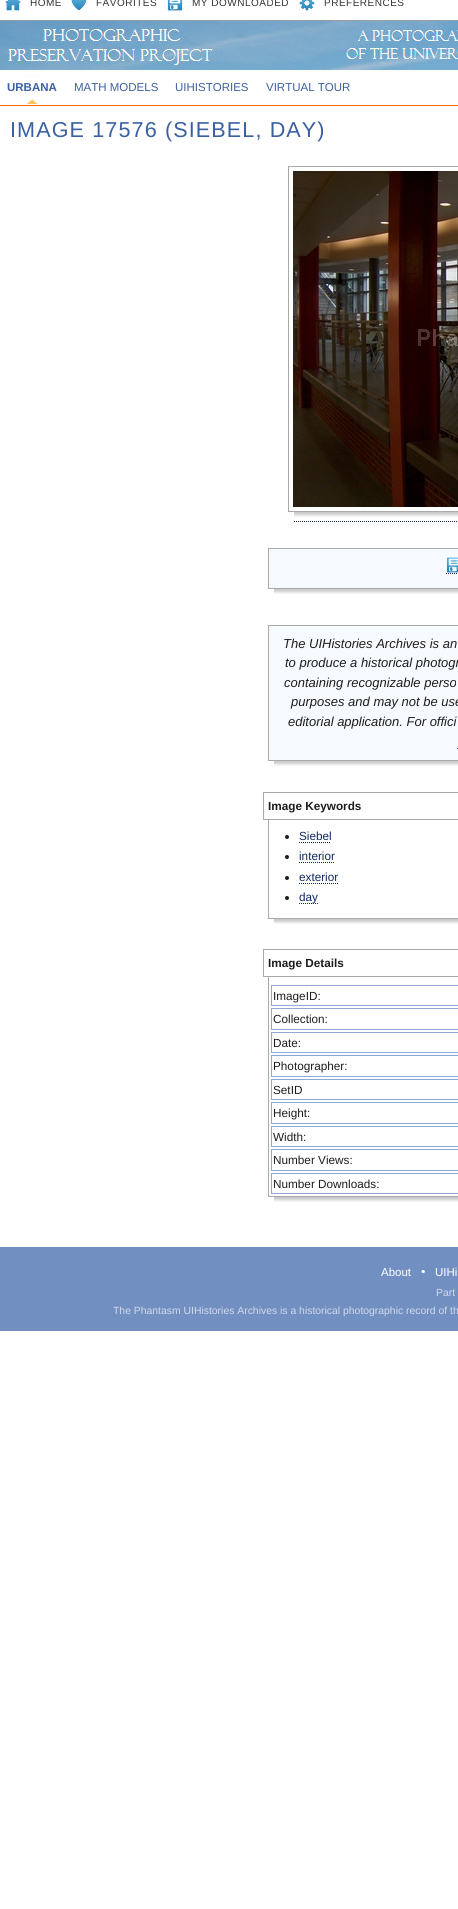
#include <cairo.h>
#include <math.h>
#include <stddef.h>


static void rgb(cairo_t *cr, int r, int g, int b)
{
	cairo_set_source_rgb(cr, r / 255.0, g / 255.0, b / 255.0);
}

static void face(cairo_t *cr, const char *family, double size, int italic, int bold)
{
	cairo_select_font_face(cr, family, italic ? CAIRO_FONT_SLANT_ITALIC : CAIRO_FONT_SLANT_NORMAL,
		bold ? CAIRO_FONT_WEIGHT_BOLD : CAIRO_FONT_WEIGHT_NORMAL);
	cairo_set_font_size(cr, size);
}

static void label(cairo_t *cr, double x, double y, const char *s)
{
	cairo_move_to(cr, x, y);
	cairo_show_text(cr, s);
}

static void tracked(cairo_t *cr, double x, double y, const char *s, double letter, double word)
{
	cairo_move_to(cr, x, y);
	while (*s) {
		char ch[5] = {0};
		int n = 0;
		do ch[n++] = *s++; while ((*s & 0xC0) == 0x80);
		cairo_show_text(cr, ch);
		cairo_rel_move_to(cr, letter + word * (*ch == ' '), 0);
	}
}

static void rect(cairo_t *cr, double x, double y, double w, double h)
{
	cairo_rectangle(cr, x, y, w, h);
	cairo_fill(cr);
}

static void image(cairo_t *cr, const char *path, double x, double y, double w, double h)
{
	cairo_surface_t *image = cairo_image_surface_create_from_png(path);
	cairo_save(cr);
	cairo_set_source_surface(cr, image, x, y);
	cairo_rectangle(cr, x, y, w, h);
	cairo_fill(cr);
	cairo_restore(cr);
	cairo_surface_destroy(image);
}

static void draw(cairo_t *cr) {
	rgb(cr, 255, 255, 255);
	cairo_paint(cr);
	rgb(cr, 157, 157, 157);
	rect(cr, 0, 20, 458, 1);
	image(cr, "image0.png", 5, 0, 16, 11);
	face(cr, "Liberation Sans", 10, 0, 0);
	rgb(cr, 51, 51, 51);
	tracked(cr, 30, 6, "HOME", 0.5, 0);
	image(cr, "image1.png", 71, 0, 16, 11);
	tracked(cr, 96, 6, "FAVORITES", 0.5, 0);
	image(cr, "image2.png", 167, 0, 16, 11);
	tracked(cr, 192, 6, "MY DOWNLOADED", 0.5, 0);
	image(cr, "image3.png", 299, 0, 16, 11);
	tracked(cr, 324, 6, "PREFERENCES", 0.5, 0);
	image(cr, "image4.png", 0, 21, 458, 49);
	rgb(cr, 255, 102, 0);
	rect(cr, 0, 105, 458, 1);
	image(cr, "image5.png", 23, 75, 18, 29);
	face(cr, "Liberation Sans", 11.5, 0, 1);
	rgb(cr, 59, 96, 161);
	label(cr, 7, 91, "URBANA");
	face(cr, "Liberation Sans", 11.5, 0, 0);
	label(cr, 74, 91, "MATH MODELS");
	label(cr, 175, 91, "UIHISTORIES");
	label(cr, 266, 91, "VIRTUAL TOUR");
	face(cr, "Liberation Sans", 21.6, 0, 0);
	tracked(cr, 10, 137, "IMAGE 17576 (SIEBEL, DAY)", 1.1, 0);
	image(cr, "image6.png", 294, 512, 164, 5);
	cairo_rectangle(cr, 288.5, 166.5, 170, 345);
	rgb(cr, 169, 169, 169);
	cairo_set_line_width(cr, 1);
	cairo_stroke(cr);
	image(cr, "image7.png", 293, 171, 165, 336);
	cairo_new_path(cr);
	cairo_move_to(cr, 294, 521.5);
	cairo_line_to(cr, 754, 521.5);
	rgb(cr, 15, 40, 92);
	cairo_set_dash(cr, (double[]){1, 1}, 2, 0);
	cairo_stroke(cr);
	image(cr, "image8.png", 274, 589, 184, 5);
	rgb(cr, 247, 250, 255);
	cairo_rectangle(cr, 268.5, 548.5, 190, 40);
	cairo_fill_preserve(cr);
	rgb(cr, 169, 169, 169);
	cairo_set_dash(cr, NULL, 0, 0);
	cairo_stroke(cr);
	image(cr, "image9.png", 446, 557, 12, 16);
	cairo_new_path(cr);
	cairo_move_to(cr, 446, 573.5);
	cairo_line_to(cr, 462, 573.5);
	rgb(cr, 15, 40, 92);
	cairo_set_dash(cr, (double[]){1, 1}, 2, 0);
	cairo_stroke(cr);
	image(cr, "image8.png", 274, 761, 184, 5);
	rgb(cr, 247, 250, 255);
	cairo_rectangle(cr, 268.5, 625.5, 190, 135);
	cairo_fill_preserve(cr);
	rgb(cr, 169, 169, 169);
	cairo_set_dash(cr, NULL, 0, 0);
	cairo_stroke(cr);
	face(cr, "Liberation Sans", 13, 1, 0);
	rgb(cr, 29, 29, 29);
	label(cr, 283, 648, "The UIHistories Archives is an");
	label(cr, 285, 667, "to produce a historical photogr");
	label(cr, 284, 687, "containing recognizable perso");
	label(cr, 291, 706, "purposes and may not be use");
	label(cr, 288, 726, "editorial application. For offici");
	cairo_new_path(cr);
	cairo_move_to(cr, 457, 748.5);
	cairo_line_to(cr, 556, 748.5);
	rgb(cr, 15, 40, 92);
	cairo_set_dash(cr, (double[]){1, 1}, 2, 0);
	cairo_stroke(cr);
	image(cr, "image10.png", 274, 919, 184, 5);
	cairo_rectangle(cr, 268.5, 797.5, 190, 121);
	rgb(cr, 169, 169, 169);
	cairo_set_dash(cr, NULL, 0, 0);
	cairo_stroke(cr);
	rgb(cr, 255, 255, 255);
	rect(cr, 268, 797, 190, 22);
	cairo_rectangle(cr, 263.5, 792.5, 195, 27);
	rgb(cr, 169, 169, 169);
	cairo_stroke(cr);
	face(cr, "Liberation Sans", 11.75, 0, 1);
	rgb(cr, 29, 29, 29);
	label(cr, 268, 810, "Image Keywords");
	cairo_new_path(cr);
	cairo_arc(cr, 287, 837, 2, 0, 2 * M_PI);
	cairo_fill(cr);
	face(cr, "Liberation Sans", 11.75, 0, 0);
	rgb(cr, 15, 40, 92);
	label(cr, 299, 840, "Siebel");
	cairo_new_path(cr);
	cairo_move_to(cr, 299, 842.5);
	cairo_line_to(cr, 331, 842.5);
	cairo_set_dash(cr, (double[]){1, 1}, 2, 0);
	cairo_stroke(cr);
	rgb(cr, 29, 29, 29);
	cairo_arc(cr, 287, 857, 2, 0, 2 * M_PI);
	cairo_fill(cr);
	rgb(cr, 15, 40, 92);
	label(cr, 299, 860, "interior");
	cairo_new_path(cr);
	cairo_move_to(cr, 299, 862.5);
	cairo_line_to(cr, 335, 862.5);
	cairo_stroke(cr);
	rgb(cr, 29, 29, 29);
	cairo_arc(cr, 287, 878, 2, 0, 2 * M_PI);
	cairo_fill(cr);
	rgb(cr, 15, 40, 92);
	label(cr, 299, 881, "exterior");
	cairo_new_path(cr);
	cairo_move_to(cr, 299, 883.5);
	cairo_line_to(cr, 338, 883.5);
	cairo_stroke(cr);
	rgb(cr, 29, 29, 29);
	cairo_arc(cr, 287, 898, 2, 0, 2 * M_PI);
	cairo_fill(cr);
	cairo_new_path(cr);
	cairo_move_to(cr, 299, 903.5);
	cairo_line_to(cr, 318, 903.5);
	rgb(cr, 15, 40, 92);
	cairo_stroke(cr);
	label(cr, 299, 901, "day");
	image(cr, "image10.png", 274, 1197, 184, 5);
	cairo_rectangle(cr, 268.5, 954.5, 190, 242);
	rgb(cr, 169, 169, 169);
	cairo_set_dash(cr, NULL, 0, 0);
	cairo_stroke(cr);
	rgb(cr, 255, 255, 255);
	rect(cr, 268, 954, 190, 22);
	cairo_rectangle(cr, 263.5, 949.5, 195, 27);
	rgb(cr, 169, 169, 169);
	cairo_stroke(cr);
	face(cr, "Liberation Sans", 11.75, 0, 1);
	rgb(cr, 29, 29, 29);
	label(cr, 268, 967, "Image Details");
	cairo_rectangle(cr, 271.5, 985.5, 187, 20);
	rgb(cr, 143, 168, 212);
	cairo_stroke(cr);
	face(cr, "Liberation Sans", 11.75, 0, 0);
	rgb(cr, 29, 29, 29);
	label(cr, 273, 1000, "ImageID:");
	cairo_rectangle(cr, 271.5, 1008.5, 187, 21);
	rgb(cr, 143, 168, 212);
	cairo_stroke(cr);
	rgb(cr, 29, 29, 29);
	label(cr, 273, 1023, "Collection:");
	cairo_rectangle(cr, 271.5, 1032.5, 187, 20);
	rgb(cr, 143, 168, 212);
	cairo_stroke(cr);
	rgb(cr, 29, 29, 29);
	label(cr, 273, 1047, "Date:");
	cairo_rectangle(cr, 271.5, 1055.5, 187, 21);
	rgb(cr, 143, 168, 212);
	cairo_stroke(cr);
	rgb(cr, 29, 29, 29);
	label(cr, 273, 1070, "Photographer:");
	cairo_rectangle(cr, 271.5, 1079.5, 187, 20);
	rgb(cr, 143, 168, 212);
	cairo_stroke(cr);
	rgb(cr, 29, 29, 29);
	label(cr, 273, 1094, "SetID");
	cairo_rectangle(cr, 271.5, 1102.5, 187, 21);
	rgb(cr, 143, 168, 212);
	cairo_stroke(cr);
	rgb(cr, 29, 29, 29);
	label(cr, 273, 1117, "Height:");
	cairo_rectangle(cr, 271.5, 1126.5, 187, 20);
	rgb(cr, 143, 168, 212);
	cairo_stroke(cr);
	rgb(cr, 29, 29, 29);
	label(cr, 273, 1141, "Width:");
	cairo_rectangle(cr, 271.5, 1149.5, 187, 21);
	rgb(cr, 143, 168, 212);
	cairo_stroke(cr);
	rgb(cr, 29, 29, 29);
	label(cr, 273, 1164, "Number Views:");
	cairo_rectangle(cr, 271.5, 1173.5, 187, 20);
	rgb(cr, 143, 168, 212);
	cairo_stroke(cr);
	rgb(cr, 29, 29, 29);
	label(cr, 273, 1188, "Number Downloads:");
	rgb(cr, 114, 143, 194);
	rect(cr, 0, 1247, 458, 84);
	face(cr, "Liberation Sans", 11.5, 0, 0);
	rgb(cr, 255, 255, 255);
	label(cr, 381, 1276, "About");
	image(cr, "image11.png", 421, 1270, 4, 4);
	label(cr, 435, 1276, "UIHi");
	face(cr, "Liberation Sans", 10.4, 0, 0);
	rgb(cr, 210, 218, 233);
	label(cr, 436, 1296, "Part");
	label(cr, 113, 1314, "The Phantasm UIHistories Archives is a historical photographic record of th");
}

int main(void) {
	cairo_surface_t *surface = cairo_image_surface_create(CAIRO_FORMAT_RGB24, 458, 1909);
	cairo_t *cr = cairo_create(surface);
	cairo_font_options_t *options = cairo_font_options_create();
	cairo_font_options_set_hint_metrics(options, CAIRO_HINT_METRICS_OFF);
	cairo_font_options_set_hint_style(options, CAIRO_HINT_STYLE_NONE);
	cairo_set_font_options(cr, options);
	cairo_set_miter_limit(cr, 4);
	draw(cr);
	cairo_surface_write_to_png(surface, "render.png");
	cairo_font_options_destroy(options);
	cairo_destroy(cr);
	cairo_surface_destroy(surface);
	return 0;
}
